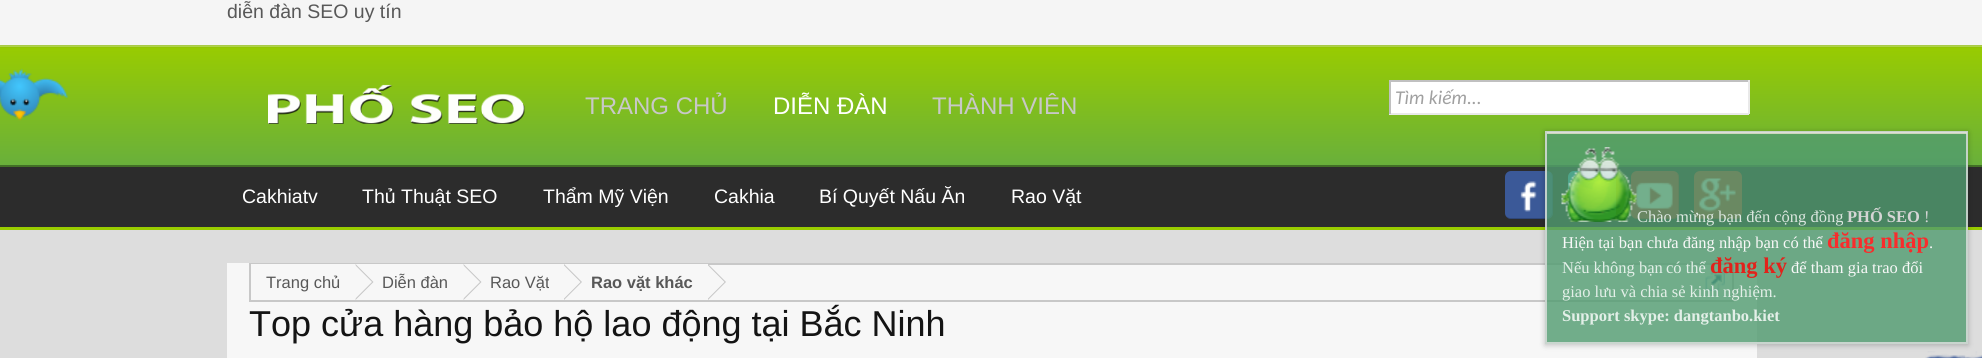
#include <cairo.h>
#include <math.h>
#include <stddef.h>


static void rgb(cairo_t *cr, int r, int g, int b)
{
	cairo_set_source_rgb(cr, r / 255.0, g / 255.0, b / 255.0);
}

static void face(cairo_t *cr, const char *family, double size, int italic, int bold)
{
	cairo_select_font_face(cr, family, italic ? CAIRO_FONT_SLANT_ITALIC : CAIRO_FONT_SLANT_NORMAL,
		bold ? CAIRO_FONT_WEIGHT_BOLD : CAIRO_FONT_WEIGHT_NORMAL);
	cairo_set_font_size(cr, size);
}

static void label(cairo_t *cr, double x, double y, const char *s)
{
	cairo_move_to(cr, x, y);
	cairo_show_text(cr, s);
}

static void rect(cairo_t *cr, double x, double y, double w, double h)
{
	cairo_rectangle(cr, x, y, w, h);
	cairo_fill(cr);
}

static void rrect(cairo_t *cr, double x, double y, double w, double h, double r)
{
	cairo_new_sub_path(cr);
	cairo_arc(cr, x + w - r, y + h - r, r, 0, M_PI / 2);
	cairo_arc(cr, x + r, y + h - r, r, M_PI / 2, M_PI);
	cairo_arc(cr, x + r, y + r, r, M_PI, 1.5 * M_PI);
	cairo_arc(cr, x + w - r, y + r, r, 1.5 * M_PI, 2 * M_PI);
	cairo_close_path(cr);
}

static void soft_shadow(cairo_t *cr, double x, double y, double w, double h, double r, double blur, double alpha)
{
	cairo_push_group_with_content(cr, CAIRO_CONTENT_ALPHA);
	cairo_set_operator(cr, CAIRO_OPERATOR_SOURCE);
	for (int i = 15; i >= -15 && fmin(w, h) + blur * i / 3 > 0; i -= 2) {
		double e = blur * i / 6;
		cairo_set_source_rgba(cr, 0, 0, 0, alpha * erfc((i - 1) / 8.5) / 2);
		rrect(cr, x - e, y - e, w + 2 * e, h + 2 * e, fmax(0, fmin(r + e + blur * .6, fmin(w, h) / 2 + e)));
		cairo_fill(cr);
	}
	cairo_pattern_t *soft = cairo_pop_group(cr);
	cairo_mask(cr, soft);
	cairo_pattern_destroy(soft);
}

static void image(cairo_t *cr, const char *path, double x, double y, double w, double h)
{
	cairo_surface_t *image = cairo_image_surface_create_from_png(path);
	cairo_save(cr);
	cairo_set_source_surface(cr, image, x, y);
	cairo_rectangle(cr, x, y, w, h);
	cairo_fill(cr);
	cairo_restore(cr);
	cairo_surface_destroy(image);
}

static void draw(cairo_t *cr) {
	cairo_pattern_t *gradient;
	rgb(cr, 221, 221, 221);
	cairo_paint(cr);
	gradient = cairo_pattern_create_linear(992, 45, 992, 165);
	cairo_pattern_add_color_stop_rgba(gradient, 0, 0.6, 0.8, 0, 1);
	cairo_pattern_add_color_stop_rgba(gradient, 1, 0.412, 0.69, 0.231, 1);
	cairo_set_source(cr, gradient);
	cairo_pattern_destroy(gradient);
	rect(cr, 0, 47, 1982, 118);
	rgb(cr, 183, 219, 77);
	rect(cr, 0, 45, 1982, 2);
	rgb(cr, 0, 0, 0);
	soft_shadow(cr, 0, 0, 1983, 45, 0, 2, 0.2);
	rgb(cr, 245, 245, 245);
	rect(cr, 0, 0, 1982, 45);
	face(cr, "Liberation Sans", 19.5, 0, 0);
	rgb(cr, 88, 88, 88);
	label(cr, 227, 18, "diễn đàn SEO uy tín");
	image(cr, "image0.png", 0, 68, 68, 53);
	rgb(cr, 66, 112, 38);
	rect(cr, 0, 165, 1982, 2);
	image(cr, "image1.png", 268, 84, 257, 40);
	face(cr, "Liberation Sans", 24, 0, 0);
	rgb(cr, 200, 200, 200);
	label(cr, 585, 114, "TRANG CHỦ");
	rgb(cr, 255, 255, 255);
	label(cr, 773, 114, "DIỄN ĐÀN");
	rgb(cr, 200, 200, 200);
	label(cr, 932, 114, "THÀNH VIÊN");
	rgb(cr, 255, 255, 255);
	rect(cr, 1391, 82, 357, 31);
	rgb(cr, 192, 192, 192);
	rect(cr, 1389, 80, 360, 2);
	rgb(cr, 233, 233, 233);
	rect(cr, 1748, 80, 2, 34);
	rect(cr, 1389, 113, 360, 2);
	rgb(cr, 192, 192, 192);
	rect(cr, 1389, 80, 2, 34);
	face(cr, "Carlito", 19.5, 1, 0);
	rgb(cr, 160, 160, 160);
	label(cr, 1395, 104, "Tìm kiếm...");
	rgb(cr, 44, 44, 44);
	rect(cr, 0, 167, 1982, 60);
	rgb(cr, 153, 204, 0);
	rect(cr, 0, 227, 1982, 3);
	face(cr, "Liberation Sans", 19.5, 0, 0);
	rgb(cr, 255, 255, 255);
	label(cr, 242, 203, "Cakhiatv");
	label(cr, 362, 203, "Thủ Thuật SEO");
	label(cr, 543, 203, "Thẩm Mỹ Viện");
	label(cr, 714, 203, "Cakhia");
	label(cr, 819, 203, "Bí Quyết Nấu Ăn");
	label(cr, 1011, 203, "Rao Vặt");
	rgb(cr, 59, 89, 152);
	rrect(cr, 1505, 171, 48, 48, 6);
	cairo_fill(cr);
	image(cr, "image2.png", 1520, 181, 17, 31);
	cairo_set_source_rgba(cr, 0, 0, 0, 0.2);
	cairo_new_path(cr);
	cairo_move_to(cr, 1506, 216);
	cairo_curve_to(cr, 1507, 218, 1509, 219, 1511, 219);
	cairo_line_to(cr, 1547, 219);
	cairo_curve_to(cr, 1550, 219, 1553, 216, 1553, 213);
	cairo_line_to(cr, 1553, 177);
	cairo_curve_to(cr, 1553, 175, 1552, 174, 1551, 173);
	cairo_line_to(cr, 1552, 176);
	cairo_line_to(cr, 1552, 212);
	cairo_curve_to(cr, 1552, 215, 1550, 218, 1546, 218);
	cairo_line_to(cr, 1510, 218);
	cairo_curve_to(cr, 1509, 218, 1507, 217, 1506, 216);
	cairo_close_path(cr);
	cairo_fill(cr);
	rgb(cr, 68, 204, 246);
	rrect(cr, 1568, 171, 48, 48, 6);
	cairo_fill(cr);
	image(cr, "image3.png", 1574, 179, 38, 32);
	rgb(cr, 206, 51, 45);
	rrect(cr, 1631, 171, 48, 48, 6);
	cairo_fill(cr);
	image(cr, "image4.png", 1636, 182, 37, 27);
	cairo_set_source_rgba(cr, 0, 0, 0, 0.2);
	cairo_new_path(cr);
	cairo_move_to(cr, 1632, 216);
	cairo_curve_to(cr, 1633, 218, 1635, 219, 1637, 219);
	cairo_line_to(cr, 1673, 219);
	cairo_curve_to(cr, 1676, 219, 1679, 216, 1679, 213);
	cairo_line_to(cr, 1679, 177);
	cairo_curve_to(cr, 1679, 175, 1678, 174, 1677, 173);
	cairo_line_to(cr, 1678, 176);
	cairo_line_to(cr, 1678, 212);
	cairo_curve_to(cr, 1678, 215, 1676, 218, 1672, 218);
	cairo_line_to(cr, 1636, 218);
	cairo_curve_to(cr, 1635, 218, 1633, 217, 1632, 216);
	cairo_close_path(cr);
	cairo_fill(cr);
	rgb(cr, 209, 63, 45);
	rrect(cr, 1694, 171, 48, 48, 6);
	cairo_fill(cr);
	image(cr, "image5.png", 1698, 178, 38, 34);
	cairo_set_source_rgba(cr, 0, 0, 0, 0.2);
	cairo_new_path(cr);
	cairo_move_to(cr, 1694, 212);
	cairo_curve_to(cr, 1694, 220, 1700, 219, 1706, 219);
	cairo_line_to(cr, 1730, 219);
	cairo_curve_to(cr, 1736, 219, 1742, 220, 1742, 212);
	cairo_curve_to(cr, 1742, 215, 1739, 218, 1736, 218);
	cairo_line_to(cr, 1700, 218);
	cairo_curve_to(cr, 1696, 218, 1694, 215, 1694, 212);
	cairo_close_path(cr);
	cairo_fill(cr);
	rgb(cr, 247, 247, 247);
	rect(cr, 227, 263, 1530, 95);
	cairo_rectangle(cr, 250, 264, 1483, 37);
	rgb(cr, 200, 200, 200);
	cairo_stroke(cr);
	rgb(cr, 247, 247, 247);
	rect(cr, 251, 264, 457, 1);
	face(cr, "Liberation Sans", 16.5, 0, 0);
	rgb(cr, 88, 88, 88);
	label(cr, 266, 288, "Trang chủ");
	rgb(cr, 200, 200, 200);
	cairo_new_path(cr);
	cairo_move_to(cr, 355.5, 300);
	cairo_line_to(cr, 355.5, 264);
	cairo_line_to(cr, 373.5, 282);
	cairo_close_path(cr);
	cairo_fill(cr);
	rgb(cr, 247, 247, 247);
	cairo_new_path(cr);
	cairo_move_to(cr, 354, 300);
	cairo_line_to(cr, 354, 264);
	cairo_line_to(cr, 372, 282);
	cairo_close_path(cr);
	cairo_fill(cr);
	rgb(cr, 88, 88, 88);
	label(cr, 382, 288, "Diễn đàn");
	rgb(cr, 200, 200, 200);
	cairo_new_path(cr);
	cairo_move_to(cr, 463.5, 300);
	cairo_line_to(cr, 463.5, 264);
	cairo_line_to(cr, 481.5, 282);
	cairo_close_path(cr);
	cairo_fill(cr);
	rgb(cr, 247, 247, 247);
	cairo_new_path(cr);
	cairo_move_to(cr, 462, 300);
	cairo_line_to(cr, 462, 264);
	cairo_line_to(cr, 480, 282);
	cairo_close_path(cr);
	cairo_fill(cr);
	cairo_save(cr);
	cairo_rectangle(cr, 491, 264, 58, 36);
	cairo_clip(cr);
	rgb(cr, 88, 88, 88);
	label(cr, 490, 288, "Rao Vặt");
	cairo_restore(cr);
	rgb(cr, 200, 200, 200);
	cairo_new_path(cr);
	cairo_move_to(cr, 564, 300);
	cairo_line_to(cr, 564, 264);
	cairo_line_to(cr, 582, 282);
	cairo_close_path(cr);
	cairo_fill(cr);
	rgb(cr, 247, 247, 247);
	cairo_new_path(cr);
	cairo_move_to(cr, 562.5, 300);
	cairo_line_to(cr, 562.5, 264);
	cairo_line_to(cr, 580.5, 282);
	cairo_close_path(cr);
	cairo_fill(cr);
	face(cr, "Liberation Sans", 16.5, 0, 1);
	rgb(cr, 88, 88, 88);
	label(cr, 591, 288, "Rao vặt khác");
	rgb(cr, 200, 200, 200);
	cairo_new_path(cr);
	cairo_move_to(cr, 708, 300);
	cairo_line_to(cr, 708, 264);
	cairo_line_to(cr, 726, 282);
	cairo_close_path(cr);
	cairo_fill(cr);
	rgb(cr, 247, 247, 247);
	cairo_new_path(cr);
	cairo_move_to(cr, 706.5, 300);
	cairo_line_to(cr, 706.5, 264);
	cairo_line_to(cr, 724.5, 282);
	cairo_close_path(cr);
	cairo_fill(cr);
	image(cr, "image6.png", 1705, 271, 20, 20);
	face(cr, "Liberation Sans", 36, 0, 0);
	rgb(cr, 20, 20, 20);
	label(cr, 249, 336, "Top cửa hàng bảo hộ lao động tại Bắc Ninh");
	image(cr, "image8.png", 1925, 351, 57, 7);
	cairo_save(cr);
	cairo_set_fill_rule(cr, CAIRO_FILL_RULE_EVEN_ODD);
	cairo_new_path(cr);
	cairo_move_to(cr, 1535, 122);
	cairo_line_to(cr, 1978, 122);
	cairo_line_to(cr, 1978, 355);
	cairo_line_to(cr, 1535, 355);
	cairo_close_path(cr);
	cairo_move_to(cr, 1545, 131);
	cairo_line_to(cr, 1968, 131);
	cairo_line_to(cr, 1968, 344);
	cairo_line_to(cr, 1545, 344);
	cairo_close_path(cr);
	cairo_clip(cr);
	rgb(cr, 0, 0, 0);
	soft_shadow(cr, 1545, 132, 423, 213, 0, 3, 0.24);
	cairo_restore(cr);
	cairo_set_source_rgba(cr, 0.314, 0.608, 0.439, 0.8);
	rect(cr, 1545, 131, 423, 213);
	rgb(cr, 203, 216, 188);
	rect(cr, 1547, 132, 420, 2);
	cairo_rectangle(cr, 1546, 132, 421, 211);
	cairo_set_source_rgba(cr, 0.878, 0.878, 0.878, 0.8);
	cairo_stroke(cr);
	image(cr, "image7.png", 1561, 147, 76, 75);
	face(cr, "Liberation Serif", 16.5, 0, 0);
	rgb(cr, 220, 231, 224);
	label(cr, 1637, 222, "Chào mừng bạn đến cộng đồng");
	face(cr, "Liberation Serif", 16.5, 0, 1);
	rgb(cr, 213, 213, 213);
	label(cr, 1847, 222, "PHỐ SEO");
	face(cr, "Liberation Serif", 16.5, 0, 0);
	label(cr, 1924, 222, "!");
	rgb(cr, 248, 248, 248);
	label(cr, 1562, 248, "Hiện tại bạn chưa đăng nhập bạn có thể");
	face(cr, "Liberation Serif", 22.5, 0, 1);
	rgb(cr, 248, 44, 44);
	label(cr, 1827, 248, "đăng nhập");
	face(cr, "Liberation Serif", 16.5, 0, 0);
	rgb(cr, 248, 248, 248);
	label(cr, 1929, 248, ".");
	rgb(cr, 227, 239, 232);
	label(cr, 1562, 273, "Nếu không bạn");
	label(cr, 1666, 273, "có thể");
	face(cr, "Liberation Serif", 22.5, 0, 1);
	rgb(cr, 226, 34, 27);
	label(cr, 1710, 273, "đăng ký");
	face(cr, "Liberation Serif", 16.5, 0, 0);
	rgb(cr, 248, 248, 248);
	label(cr, 1791, 273, "để tham gia trao đổi");
	rgb(cr, 227, 239, 232);
	label(cr, 1562, 297, "giao lưu và chia sẻ kinh nghiệm.");
	face(cr, "Liberation Serif", 16.5, 0, 1);
	label(cr, 1562, 321, "Support skype: dangtanbo.kiet");
}

int main(void) {
	cairo_surface_t *surface = cairo_image_surface_create(CAIRO_FORMAT_RGB24, 1982, 358);
	cairo_t *cr = cairo_create(surface);
	cairo_font_options_t *options = cairo_font_options_create();
	cairo_font_options_set_hint_metrics(options, CAIRO_HINT_METRICS_OFF);
	cairo_font_options_set_hint_style(options, CAIRO_HINT_STYLE_NONE);
	cairo_set_font_options(cr, options);
	cairo_set_miter_limit(cr, 4);
	draw(cr);
	cairo_surface_write_to_png(surface, "render.png");
	cairo_font_options_destroy(options);
	cairo_destroy(cr);
	cairo_surface_destroy(surface);
	return 0;
}
